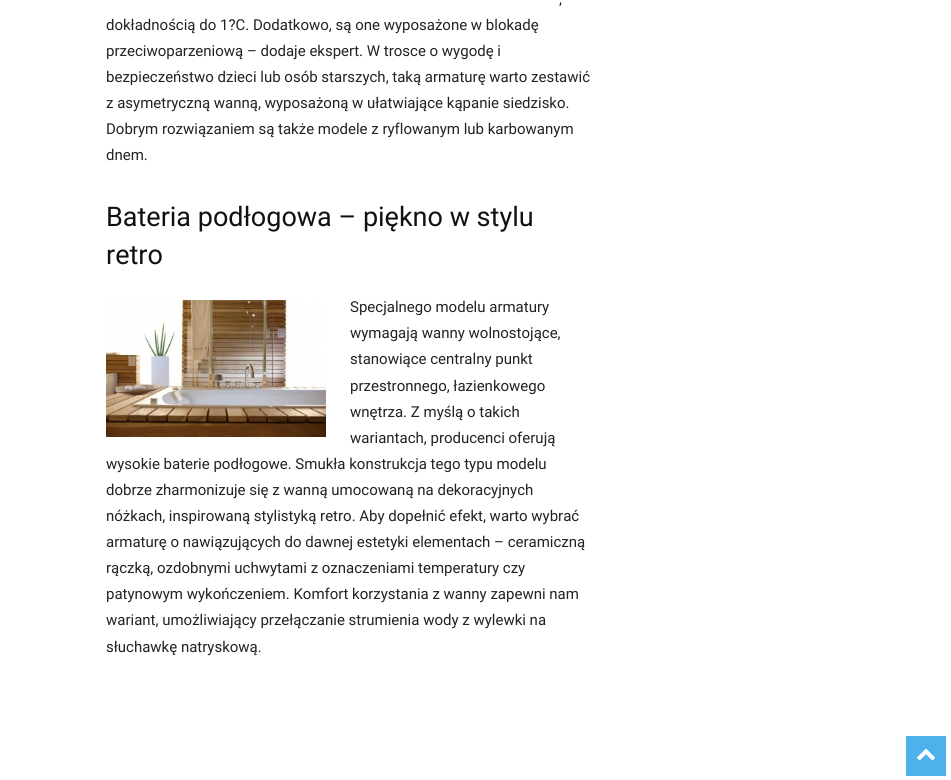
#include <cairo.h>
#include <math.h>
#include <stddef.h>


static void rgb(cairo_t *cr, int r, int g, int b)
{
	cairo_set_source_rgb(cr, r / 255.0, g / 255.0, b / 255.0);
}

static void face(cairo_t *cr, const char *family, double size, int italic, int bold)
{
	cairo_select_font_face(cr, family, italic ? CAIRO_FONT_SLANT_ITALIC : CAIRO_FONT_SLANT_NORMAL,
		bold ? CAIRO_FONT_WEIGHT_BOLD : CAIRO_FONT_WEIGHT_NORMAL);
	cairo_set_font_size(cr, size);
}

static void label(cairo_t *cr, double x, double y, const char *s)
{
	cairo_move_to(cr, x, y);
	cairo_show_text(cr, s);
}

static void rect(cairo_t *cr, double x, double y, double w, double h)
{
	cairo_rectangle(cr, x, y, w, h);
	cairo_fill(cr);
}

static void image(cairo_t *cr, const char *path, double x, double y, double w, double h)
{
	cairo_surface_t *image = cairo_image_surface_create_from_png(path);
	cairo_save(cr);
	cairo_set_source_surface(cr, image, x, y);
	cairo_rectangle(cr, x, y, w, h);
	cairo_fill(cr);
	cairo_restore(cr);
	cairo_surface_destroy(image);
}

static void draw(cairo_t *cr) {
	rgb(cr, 255, 255, 255);
	cairo_paint(cr);
	face(cr, "Roboto", 15, 0, 0);
	rgb(cr, 34, 34, 34);
	label(cr, 559, 4, ",");
	label(cr, 106, 30, "dokładnością do 1?C. Dodatkowo, są one wyposażone w blokadę");
	label(cr, 106, 56, "przeciwoparzeniową – dodaje ekspert. W trosce o wygodę i");
	label(cr, 106, 82, "bezpieczeństwo dzieci lub osób starszych, taką armaturę warto zestawić");
	label(cr, 106, 108, "z asymetryczną wanną, wyposażoną w ułatwiające kąpanie siedzisko.");
	label(cr, 106, 134, "Dobrym rozwiązaniem są także modele z ryflowanym lub karbowanym");
	label(cr, 106, 160, "dnem.");
	face(cr, "Roboto", 27, 0, 0);
	rgb(cr, 17, 17, 17);
	label(cr, 106, 226, "Bateria podłogowa – piękno w stylu");
	label(cr, 106, 264, "retro");
	image(cr, "image0.png", 106, 300, 220, 137);
	face(cr, "Roboto", 15, 0, 0);
	rgb(cr, 34, 34, 34);
	label(cr, 350, 312, "Specjalnego modelu armatury");
	label(cr, 350, 338, "wymagają wanny wolnostojące,");
	label(cr, 350, 364, "stanowiące centralny punkt");
	label(cr, 350, 391, "przestronnego, łazienkowego");
	label(cr, 350, 417, "wnętrza. Z myślą o takich");
	label(cr, 350, 443, "wariantach, producenci oferują");
	label(cr, 106, 469, "wysokie baterie podłogowe. Smukła konstrukcja tego typu modelu");
	label(cr, 106, 495, "dobrze zharmonizuje się z wanną umocowaną na dekoracyjnych");
	label(cr, 106, 521, "nóżkach, inspirowaną stylistyką retro. Aby dopełnić efekt, warto wybrać");
	label(cr, 106, 547, "armaturę o nawiązujących do dawnej estetyki elementach – ceramiczną");
	label(cr, 106, 573, "rączką, ozdobnymi uchwytami z oznaczeniami temperatury czy");
	label(cr, 106, 599, "patynowym wykończeniem. Komfort korzystania z wanny zapewni nam");
	label(cr, 106, 625, "wariant, umożliwiający przełączanie strumienia wody z wylewki na");
	label(cr, 106, 652, "słuchawkę natryskową.");
	rgb(cr, 77, 178, 236);
	rect(cr, 906, 736, 40, 40);
	image(cr, "image1.png", 917, 748, 18, 13);
}

int main(void) {
	cairo_surface_t *surface = cairo_image_surface_create(CAIRO_FORMAT_RGB24, 951, 780);
	cairo_t *cr = cairo_create(surface);
	cairo_font_options_t *options = cairo_font_options_create();
	cairo_font_options_set_hint_metrics(options, CAIRO_HINT_METRICS_OFF);
	cairo_font_options_set_hint_style(options, CAIRO_HINT_STYLE_NONE);
	cairo_set_font_options(cr, options);
	cairo_set_miter_limit(cr, 4);
	draw(cr);
	cairo_surface_write_to_png(surface, "render.png");
	cairo_font_options_destroy(options);
	cairo_destroy(cr);
	cairo_surface_destroy(surface);
	return 0;
}
